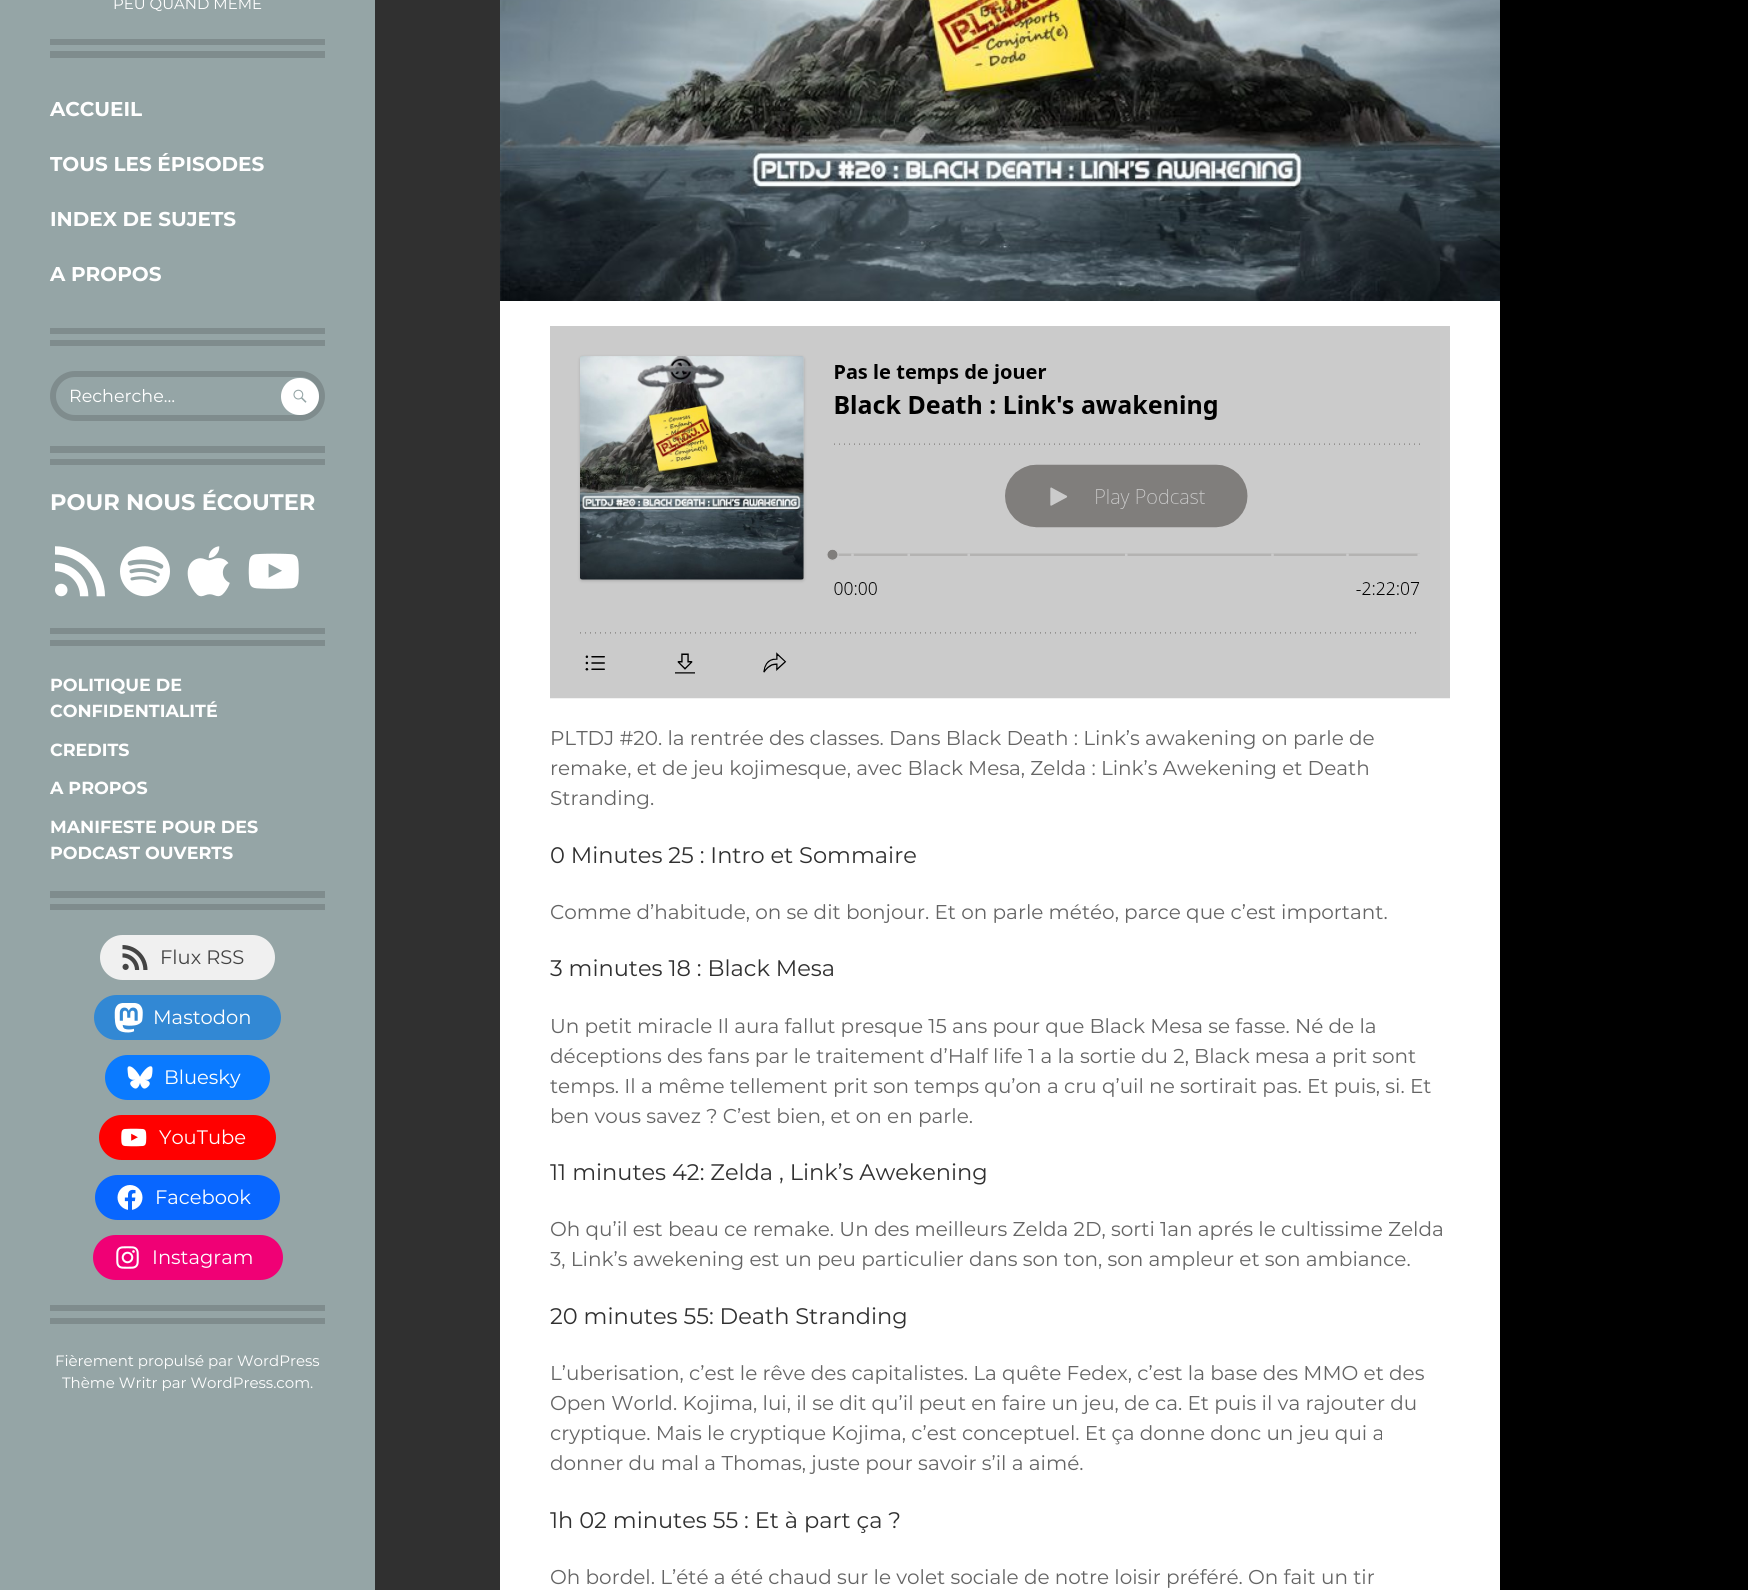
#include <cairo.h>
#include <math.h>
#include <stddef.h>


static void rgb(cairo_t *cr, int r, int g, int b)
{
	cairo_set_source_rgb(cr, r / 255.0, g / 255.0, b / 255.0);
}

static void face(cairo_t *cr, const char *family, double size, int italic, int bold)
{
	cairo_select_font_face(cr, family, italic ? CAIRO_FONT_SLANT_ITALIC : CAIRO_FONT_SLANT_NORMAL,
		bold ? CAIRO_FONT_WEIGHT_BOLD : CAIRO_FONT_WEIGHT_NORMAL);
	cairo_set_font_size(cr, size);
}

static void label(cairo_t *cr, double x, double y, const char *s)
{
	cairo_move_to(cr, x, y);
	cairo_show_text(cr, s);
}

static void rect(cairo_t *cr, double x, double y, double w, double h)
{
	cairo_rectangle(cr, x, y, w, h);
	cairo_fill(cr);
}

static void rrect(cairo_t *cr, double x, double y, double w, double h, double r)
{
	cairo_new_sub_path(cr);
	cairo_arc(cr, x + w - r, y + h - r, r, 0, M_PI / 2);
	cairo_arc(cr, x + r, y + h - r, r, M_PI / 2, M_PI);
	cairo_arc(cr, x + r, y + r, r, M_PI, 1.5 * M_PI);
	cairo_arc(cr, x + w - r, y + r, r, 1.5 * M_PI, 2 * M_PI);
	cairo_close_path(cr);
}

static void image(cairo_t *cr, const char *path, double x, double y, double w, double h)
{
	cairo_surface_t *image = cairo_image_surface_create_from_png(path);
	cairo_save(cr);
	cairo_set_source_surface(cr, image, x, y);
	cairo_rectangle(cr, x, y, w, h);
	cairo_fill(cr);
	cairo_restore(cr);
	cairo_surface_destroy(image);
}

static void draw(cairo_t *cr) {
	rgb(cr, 0, 0, 0);
	cairo_paint(cr);
	rgb(cr, 149, 165, 166);
	rect(cr, 0, 0, 375, 1590);
	rgb(cr, 127, 140, 141);
	rect(cr, 50, 39, 275, 6);
	rect(cr, 50, 51, 275, 7);
	face(cr, "Montserrat", 15, 0, 0);
	rgb(cr, 255, 255, 255);
	label(cr, 113, 9, "PEU QUAND MÊME");
	face(cr, "Montserrat", 20, 0, 1);
	label(cr, 50, 116, "ACCUEIL");
	label(cr, 50, 171, "TOUS LES ÉPISODES");
	label(cr, 50, 226, "INDEX DE SUJETS");
	label(cr, 50, 281, "A PROPOS");
	rgb(cr, 127, 140, 141);
	rect(cr, 50, 328, 275, 6);
	rect(cr, 50, 340, 275, 6);
	rect(cr, 50, 446, 275, 7);
	rect(cr, 50, 459, 275, 6);
	rrect(cr, 53, 374, 269, 44, 22);
	cairo_set_line_width(cr, 6);
	cairo_stroke(cr);
	face(cr, "Montserrat", 17.5, 0, 0);
	rgb(cr, 255, 255, 255);
	label(cr, 69, 402, "Recherche…");
	rrect(cr, 281, 378, 38, 37, 18.5);
	cairo_fill(cr);
	image(cr, "image0.png", 293, 389, 14, 14);
	rgb(cr, 127, 140, 141);
	rect(cr, 50, 628, 275, 6);
	rect(cr, 50, 640, 275, 6);
	face(cr, "Montserrat", 22.5, 0, 1);
	rgb(cr, 255, 255, 255);
	label(cr, 50, 510, "POUR NOUS ÉCOUTER");
	image(cr, "image1.png", 55, 546, 50, 51);
	image(cr, "image2.png", 120, 546, 50, 51);
	image(cr, "image3.png", 187, 546, 43, 51);
	image(cr, "image4.png", 248, 553, 51, 36);
	rgb(cr, 127, 140, 141);
	rect(cr, 50, 891, 275, 7);
	rect(cr, 50, 904, 275, 6);
	face(cr, "Montserrat", 17.5, 0, 1);
	rgb(cr, 255, 255, 255);
	label(cr, 50, 691, "POLITIQUE DE");
	label(cr, 50, 717, "CONFIDENTIALITÉ");
	label(cr, 50, 756, "CREDITS");
	label(cr, 50, 794, "A PROPOS");
	label(cr, 50, 833, "MANIFESTE POUR DES");
	label(cr, 50, 859, "PODCAST OUVERTS");
	rgb(cr, 127, 140, 141);
	rect(cr, 50, 1305, 275, 6);
	rect(cr, 50, 1318, 275, 6);
	rgb(cr, 240, 240, 240);
	rrect(cr, 100, 935, 175, 45, 22.5);
	cairo_fill(cr);
	image(cr, "image5.png", 122, 945, 26, 25);
	face(cr, "Montserrat", 19.5, 0, 0);
	rgb(cr, 68, 68, 68);
	label(cr, 160, 964, "Flux RSS");
	rgb(cr, 50, 136, 212);
	rrect(cr, 94, 995, 187, 45, 22.5);
	cairo_fill(cr);
	image(cr, "image6.png", 114, 1003, 29, 30);
	rgb(cr, 255, 255, 255);
	label(cr, 153, 1024, "Mastodon");
	rgb(cr, 10, 122, 255);
	rrect(cr, 105, 1055, 165, 45, 22.5);
	cairo_fill(cr);
	image(cr, "image7.png", 127, 1066, 26, 23);
	rgb(cr, 255, 255, 255);
	label(cr, 164, 1084, "Bluesky");
	rgb(cr, 255, 0, 0);
	rrect(cr, 99, 1115, 177, 45, 22.5);
	cairo_fill(cr);
	image(cr, "image8.png", 121, 1128, 26, 19);
	rgb(cr, 255, 255, 255);
	label(cr, 159, 1144, "YouTube");
	rgb(cr, 8, 102, 255);
	rrect(cr, 95, 1175, 185, 45, 22.5);
	cairo_fill(cr);
	image(cr, "image9.png", 117, 1185, 26, 25);
	rgb(cr, 255, 255, 255);
	label(cr, 155, 1204, "Facebook");
	rgb(cr, 240, 0, 117);
	rrect(cr, 93, 1235, 190, 45, 22.5);
	cairo_fill(cr);
	image(cr, "image10.png", 116, 1246, 23, 23);
	rgb(cr, 255, 255, 255);
	label(cr, 152, 1264, "Instagram");
	face(cr, "Montserrat", 15, 0, 0);
	label(cr, 55, 1366, "Fièrement propulsé par WordPress");
	label(cr, 62, 1388, "Thème Writr par WordPress.com.");
	rect(cr, 500, 301, 1000, 1289);
	image(cr, "image11.png", 500, 0, 1000, 301);
	image(cr, "image12.png", 550, 326, 900, 373);
	face(cr, "Montserrat", 20, 0, 0);
	rgb(cr, 101, 101, 101);
	label(cr, 550, 745, "PLTDJ #20. la rentrée des classes. Dans Black Death : Link’s awakening on parle de");
	label(cr, 550, 775, "remake, et de jeu kojimesque, avec Black Mesa, Zelda : Link’s Awekening et Death");
	label(cr, 550, 805, "Stranding.");
	face(cr, "Montserrat", 22.5, 0, 0);
	rgb(cr, 48, 48, 48);
	label(cr, 550, 863, "0 Minutes 25 : Intro et Sommaire");
	face(cr, "Montserrat", 20, 0, 0);
	rgb(cr, 101, 101, 101);
	label(cr, 550, 919, "Comme d’habitude, on se dit bonjour. Et on parle météo, parce que c’est important.");
	face(cr, "Montserrat", 22.5, 0, 0);
	rgb(cr, 48, 48, 48);
	label(cr, 550, 976, "3 minutes 18 : Black Mesa");
	face(cr, "Montserrat", 20, 0, 0);
	rgb(cr, 101, 101, 101);
	label(cr, 550, 1033, "Un petit miracle Il aura fallut presque 15 ans pour que Black Mesa se fasse. Né de la");
	label(cr, 550, 1063, "déceptions des fans par le traitement d’Half life 1 a la sortie du 2, Black mesa a prit sont");
	label(cr, 550, 1093, "temps. Il a même tellement prit son temps qu’on a cru q’uil ne sortirait pas. Et puis, si. Et");
	label(cr, 550, 1123, "ben vous savez ? C’est bien, et on en parle.");
	face(cr, "Montserrat", 22.5, 0, 0);
	rgb(cr, 48, 48, 48);
	label(cr, 550, 1180, "11 minutes 42: Zelda , Link’s Awekening");
	face(cr, "Montserrat", 20, 0, 0);
	rgb(cr, 101, 101, 101);
	label(cr, 550, 1236, "Oh qu’il est beau ce remake. Un des meilleurs Zelda 2D, sorti 1an aprés le cultissime Zelda");
	label(cr, 550, 1266, "3, Link’s awekening est un peu particulier dans son ton, son ampleur et son ambiance.");
	face(cr, "Montserrat", 22.5, 0, 0);
	rgb(cr, 48, 48, 48);
	label(cr, 550, 1324, "20 minutes 55: Death Stranding");
	face(cr, "Montserrat", 20, 0, 0);
	rgb(cr, 101, 101, 101);
	label(cr, 550, 1380, "L’uberisation, c’est le rêve des capitalistes. La quête Fedex, c’est la base des MMO et des");
	label(cr, 550, 1410, "Open World. Kojima, lui, il se dit qu’il peut en faire un jeu, de ca. Et puis il va rajouter du");
	label(cr, 550, 1440, "cryptique. Mais le cryptique Kojima, c’est conceptuel. Et ça donne donc un jeu qui a");
	label(cr, 550, 1470, "donner du mal a Thomas, juste pour savoir s’il a aimé.");
	face(cr, "Montserrat", 22.5, 0, 0);
	rgb(cr, 48, 48, 48);
	label(cr, 550, 1528, "1h 02 minutes 55 : Et à part ça ?");
	face(cr, "Montserrat", 20, 0, 0);
	rgb(cr, 101, 101, 101);
	label(cr, 550, 1584, "Oh bordel. L’été a été chaud sur le volet sociale de notre loisir préféré. On fait un tir");
	rgb(cr, 48, 48, 48);
	rect(cr, 375, 0, 125, 1590);
}

int main(void) {
	cairo_surface_t *surface = cairo_image_surface_create(CAIRO_FORMAT_RGB24, 1748, 1590);
	cairo_t *cr = cairo_create(surface);
	cairo_font_options_t *options = cairo_font_options_create();
	cairo_font_options_set_hint_metrics(options, CAIRO_HINT_METRICS_OFF);
	cairo_font_options_set_hint_style(options, CAIRO_HINT_STYLE_NONE);
	cairo_set_font_options(cr, options);
	cairo_set_miter_limit(cr, 4);
	draw(cr);
	cairo_surface_write_to_png(surface, "render.png");
	cairo_font_options_destroy(options);
	cairo_destroy(cr);
	cairo_surface_destroy(surface);
	return 0;
}
